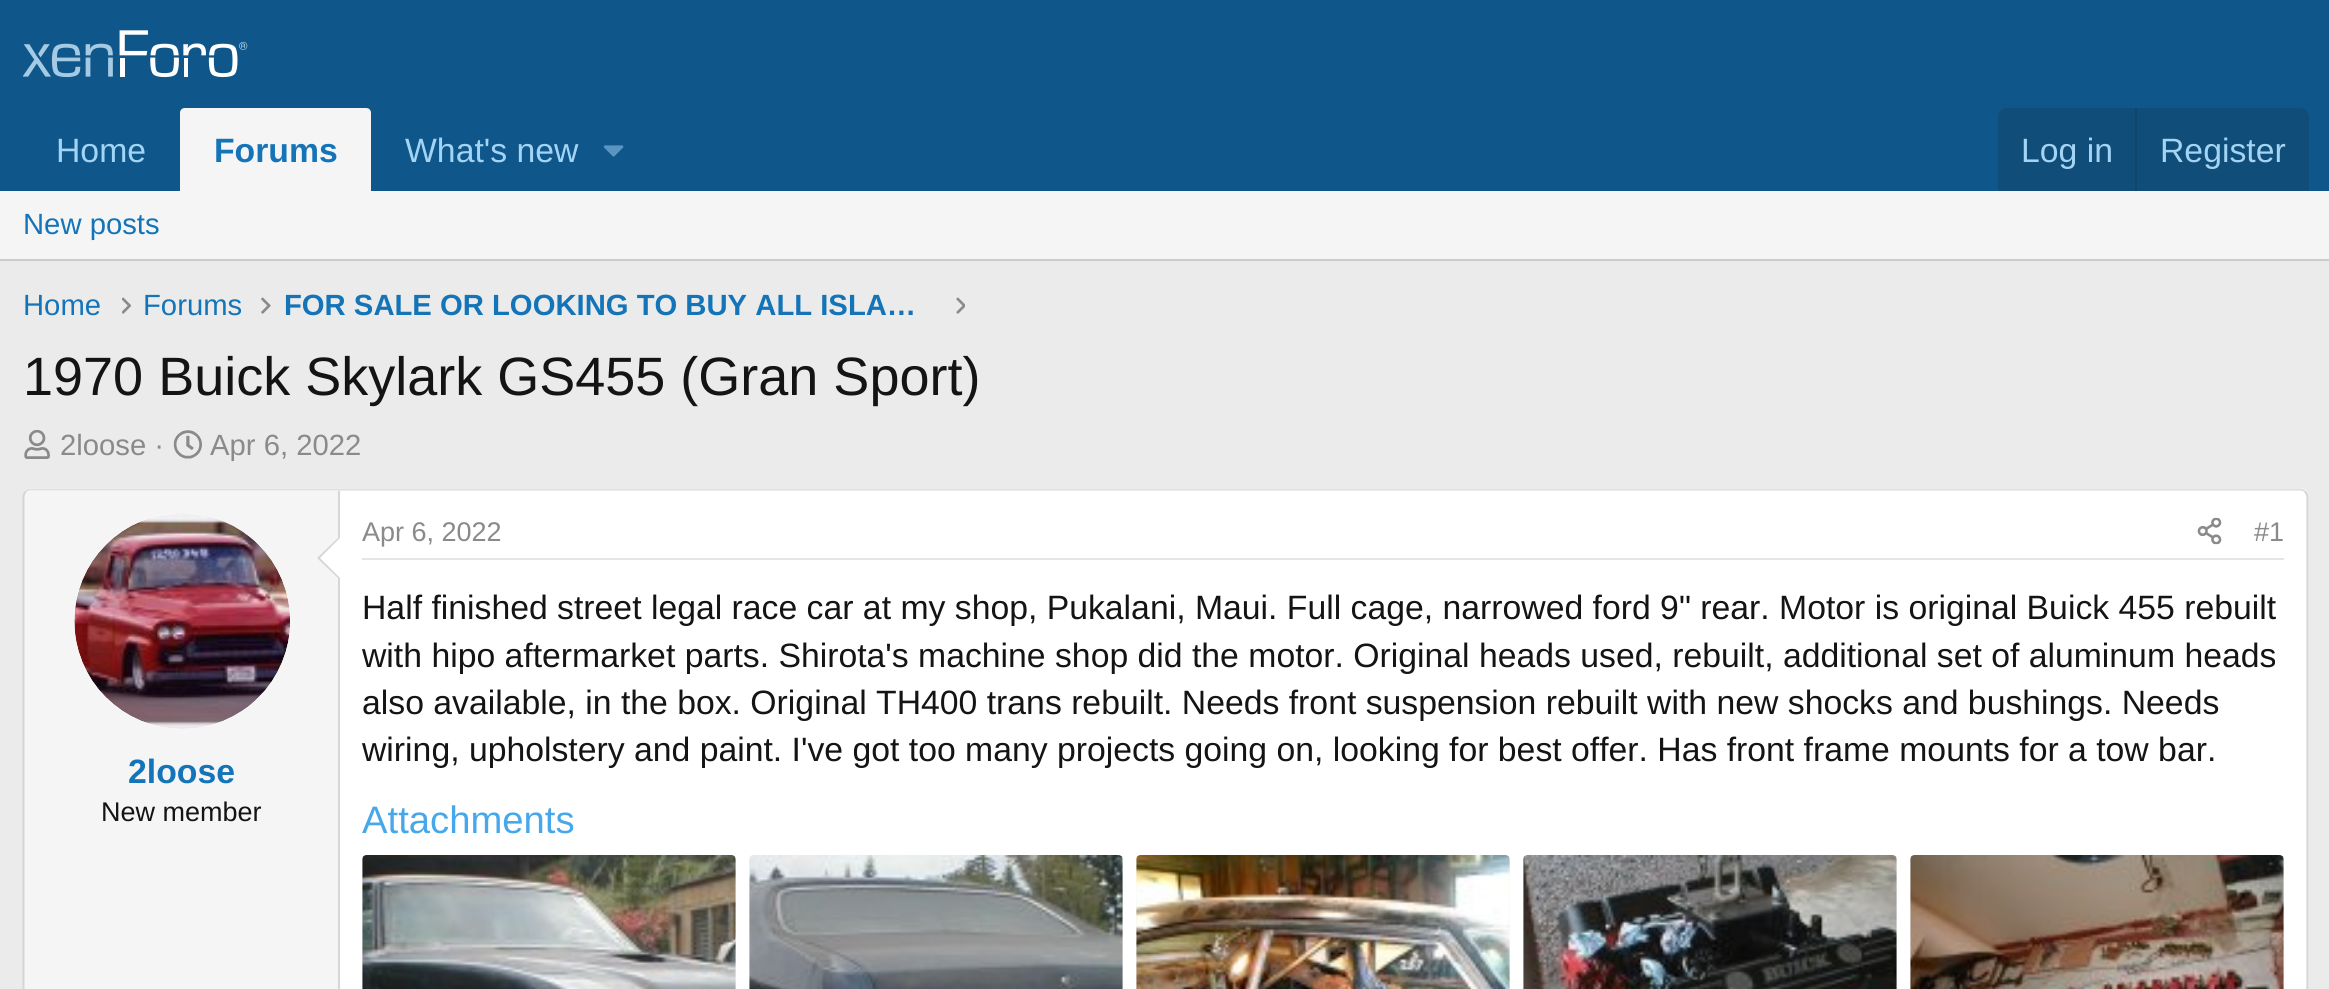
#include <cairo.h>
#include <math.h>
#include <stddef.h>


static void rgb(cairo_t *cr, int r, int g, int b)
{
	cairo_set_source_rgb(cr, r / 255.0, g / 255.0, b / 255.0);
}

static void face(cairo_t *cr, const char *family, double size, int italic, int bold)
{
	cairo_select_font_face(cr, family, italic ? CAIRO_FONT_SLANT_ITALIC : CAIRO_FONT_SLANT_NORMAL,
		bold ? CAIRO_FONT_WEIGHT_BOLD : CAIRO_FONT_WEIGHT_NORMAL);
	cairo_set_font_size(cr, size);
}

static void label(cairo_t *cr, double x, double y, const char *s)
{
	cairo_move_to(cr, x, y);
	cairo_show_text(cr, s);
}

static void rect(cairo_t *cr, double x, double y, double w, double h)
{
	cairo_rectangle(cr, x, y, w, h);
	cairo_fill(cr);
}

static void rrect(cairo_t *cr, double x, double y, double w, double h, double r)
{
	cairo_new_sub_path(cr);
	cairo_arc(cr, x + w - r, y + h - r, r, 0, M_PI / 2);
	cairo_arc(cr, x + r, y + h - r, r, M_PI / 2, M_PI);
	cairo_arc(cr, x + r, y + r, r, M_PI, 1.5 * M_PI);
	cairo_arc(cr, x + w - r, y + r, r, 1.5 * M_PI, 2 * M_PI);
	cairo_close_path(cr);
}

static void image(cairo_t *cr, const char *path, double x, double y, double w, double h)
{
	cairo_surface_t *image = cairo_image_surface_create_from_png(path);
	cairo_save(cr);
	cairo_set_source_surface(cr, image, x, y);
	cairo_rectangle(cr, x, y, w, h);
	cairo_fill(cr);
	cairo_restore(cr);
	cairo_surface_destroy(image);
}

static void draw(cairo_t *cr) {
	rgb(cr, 235, 235, 235);
	cairo_paint(cr);
	rgb(cr, 15, 87, 138);
	rect(cr, 0, 0, 2329, 191);
	image(cr, "image0.png", 23, 30, 225, 48);
	face(cr, "Liberation Sans", 33.75, 0, 0);
	rgb(cr, 163, 212, 245);
	label(cr, 56, 162, "Home");
	rgb(cr, 245, 245, 245);
	cairo_new_path(cr);
	cairo_move_to(cr, 185, 108);
	cairo_line_to(cr, 366, 108);
	cairo_curve_to(cr, 369, 108, 371, 110, 371, 113);
	cairo_line_to(cr, 371, 191);
	cairo_line_to(cr, 180, 191);
	cairo_line_to(cr, 180, 113);
	cairo_curve_to(cr, 180, 110, 182, 108, 185, 108);
	cairo_close_path(cr);
	cairo_fill(cr);
	face(cr, "Liberation Sans", 33.75, 0, 1);
	rgb(cr, 20, 116, 184);
	label(cr, 214, 162, "Forums");
	face(cr, "Liberation Sans", 33.75, 0, 0);
	rgb(cr, 163, 212, 245);
	label(cr, 405, 162, "What's new");
	image(cr, "image1.png", 603, 145, 21, 12);
	rgb(cr, 16, 77, 120);
	cairo_new_path(cr);
	cairo_move_to(cr, 2007, 108);
	cairo_line_to(cr, 2300, 108);
	cairo_curve_to(cr, 2305, 108, 2309, 112, 2309, 117);
	cairo_line_to(cr, 2309, 191);
	cairo_line_to(cr, 1998, 191);
	cairo_line_to(cr, 1998, 117);
	cairo_curve_to(cr, 1998, 112, 2002, 108, 2007, 108);
	cairo_close_path(cr);
	cairo_fill(cr);
	rgb(cr, 163, 212, 245);
	label(cr, 2021, 162, "Log in");
	rgb(cr, 17, 68, 105);
	rect(cr, 2135, 108, 2, 83);
	rgb(cr, 163, 212, 245);
	label(cr, 2160, 162, "Register");
	rgb(cr, 245, 245, 245);
	rect(cr, 0, 191, 2329, 68);
	rgb(cr, 204, 204, 204);
	rect(cr, 0, 259, 2329, 2);
	face(cr, "Liberation Sans", 29.25, 0, 0);
	rgb(cr, 20, 116, 184);
	label(cr, 23, 234, "New posts");
	label(cr, 23, 315, "Home");
	image(cr, "image2.png", 122, 297, 9, 17);
	label(cr, 143, 315, "Forums");
	image(cr, "image3.png", 261, 297, 10, 17);
	face(cr, "Liberation Sans", 29.25, 0, 1);
	label(cr, 284, 315, "FOR SALE OR LOOKING TO BUY ALL ISLA…");
	image(cr, "image4.png", 956, 297, 9, 17);
	face(cr, "Liberation Sans", 54, 0, 0);
	rgb(cr, 20, 20, 20);
	label(cr, 23, 395, "1970 Buick Skylark GS455 (Gran Sport)");
	image(cr, "image5.png", 24, 430, 26, 29);
	face(cr, "Liberation Sans", 29.25, 0, 0);
	rgb(cr, 138, 138, 138);
	label(cr, 60, 455, "2loose ·");
	image(cr, "image6.png", 173, 430, 29, 29);
	label(cr, 210, 455, "Apr 6, 2022");
	rgb(cr, 255, 255, 255);
	rrect(cr, 23, 488, 2286, 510, 9);
	cairo_fill(cr);
	cairo_new_path(cr);
	cairo_move_to(cr, 26, 491.5);
	cairo_curve_to(cr, 27.5, 490, 29.5, 489.5, 31.5, 489.5);
	cairo_line_to(cr, 2299.5, 489.5);
	cairo_curve_to(cr, 2301.5, 489.5, 2303.5, 490, 2305, 491.5);
	rgb(cr, 224, 224, 224);
	cairo_set_line_width(cr, 2.2);
	cairo_stroke(cr);
	cairo_new_path(cr);
	cairo_move_to(cr, 2305, 491.5);
	cairo_curve_to(cr, 2306.5, 493, 2307.5, 495, 2307.5, 497);
	cairo_line_to(cr, 2307.5, 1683);
	cairo_curve_to(cr, 2307.5, 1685, 2306.5, 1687, 2305, 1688.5);
	rgb(cr, 214, 214, 214);
	cairo_stroke(cr);
	cairo_new_path(cr);
	cairo_move_to(cr, 26, 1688.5);
	cairo_curve_to(cr, 24.5, 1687, 23.5, 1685, 23.5, 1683);
	cairo_line_to(cr, 23.5, 497);
	cairo_curve_to(cr, 23.5, 495, 24.5, 493, 26, 491.5);
	cairo_stroke(cr);
	rgb(cr, 245, 245, 245);
	cairo_new_path(cr);
	cairo_move_to(cr, 32, 491);
	cairo_line_to(cr, 340, 491);
	cairo_line_to(cr, 340, 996);
	cairo_line_to(cr, 32, 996);
	cairo_curve_to(cr, 28, 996, 25, 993, 25, 989);
	cairo_line_to(cr, 25, 498);
	cairo_curve_to(cr, 25, 494, 28, 491, 32, 491);
	cairo_close_path(cr);
	cairo_fill(cr);
	rgb(cr, 214, 214, 214);
	rect(cr, 338, 491, 2, 498);
	rgb(cr, 255, 255, 255);
	cairo_arc(cr, 182, 621, 108, 0, 2 * M_PI);
	cairo_fill(cr);
	image(cr, "image7.png", 74, 513, 216, 216);
	rgb(cr, 214, 214, 214);
	cairo_new_path(cr);
	cairo_move_to(cr, 340, 536);
	cairo_line_to(cr, 340, 580);
	cairo_line_to(cr, 317, 558);
	cairo_close_path(cr);
	cairo_fill(cr);
	rgb(cr, 255, 255, 255);
	cairo_new_path(cr);
	cairo_move_to(cr, 340, 538);
	cairo_line_to(cr, 340, 578);
	cairo_line_to(cr, 320, 558);
	cairo_close_path(cr);
	cairo_fill(cr);
	face(cr, "Liberation Sans", 33.75, 0, 1);
	rgb(cr, 20, 116, 184);
	label(cr, 128, 783, "2loose");
	face(cr, "Liberation Sans", 27, 0, 0);
	rgb(cr, 20, 20, 20);
	label(cr, 101, 821, "New member");
	rgb(cr, 229, 229, 229);
	rect(cr, 362, 558, 1922, 2);
	rgb(cr, 138, 138, 138);
	label(cr, 362, 541, "Apr 6, 2022");
	image(cr, "image8.png", 2197, 517, 25, 28);
	label(cr, 2254, 541, "#1");
	face(cr, "Liberation Sans", 33.75, 0, 0);
	rgb(cr, 20, 20, 20);
	label(cr, 362, 619, "Half finished street legal race car at my shop, Pukalani, Maui. Full cage, narrowed ford 9\" rear. Motor is original Buick 455 rebuilt");
	label(cr, 362, 667, "with hipo aftermarket parts. Shirota's machine shop did the motor. Original heads used, rebuilt, additional set of aluminum heads");
	label(cr, 362, 714, "also available, in the box. Original TH400 trans rebuilt. Needs front suspension rebuilt with new shocks and bushings. Needs");
	label(cr, 362, 761, "wiring, upholstery and paint. I've got too many projects going on, looking for best offer. Has front frame mounts for a tow bar.");
	face(cr, "Liberation Sans", 38.25, 0, 0);
	rgb(cr, 71, 167, 235);
	label(cr, 362, 833, "Attachments");
	rgb(cr, 245, 245, 245);
	rrect(cr, 362, 855, 374, 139, 5);
	cairo_fill(cr);
	image(cr, "image9.png", 362, 855, 374, 134);
	rrect(cr, 749, 855, 374, 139, 5);
	cairo_fill(cr);
	image(cr, "image10.png", 749, 855, 374, 134);
	rrect(cr, 1136, 855, 374, 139, 5);
	cairo_fill(cr);
	image(cr, "image11.png", 1136, 855, 374, 134);
	rrect(cr, 1523, 855, 374, 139, 5);
	cairo_fill(cr);
	image(cr, "image12.png", 1523, 855, 374, 134);
	rrect(cr, 1910, 855, 374, 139, 5);
	cairo_fill(cr);
	image(cr, "image13.png", 1910, 855, 374, 134);
}

int main(void) {
	cairo_surface_t *surface = cairo_image_surface_create(CAIRO_FORMAT_RGB24, 2329, 989);
	cairo_t *cr = cairo_create(surface);
	cairo_font_options_t *options = cairo_font_options_create();
	cairo_font_options_set_hint_metrics(options, CAIRO_HINT_METRICS_OFF);
	cairo_font_options_set_hint_style(options, CAIRO_HINT_STYLE_NONE);
	cairo_set_font_options(cr, options);
	cairo_set_miter_limit(cr, 4);
	draw(cr);
	cairo_surface_write_to_png(surface, "render.png");
	cairo_font_options_destroy(options);
	cairo_destroy(cr);
	cairo_surface_destroy(surface);
	return 0;
}
